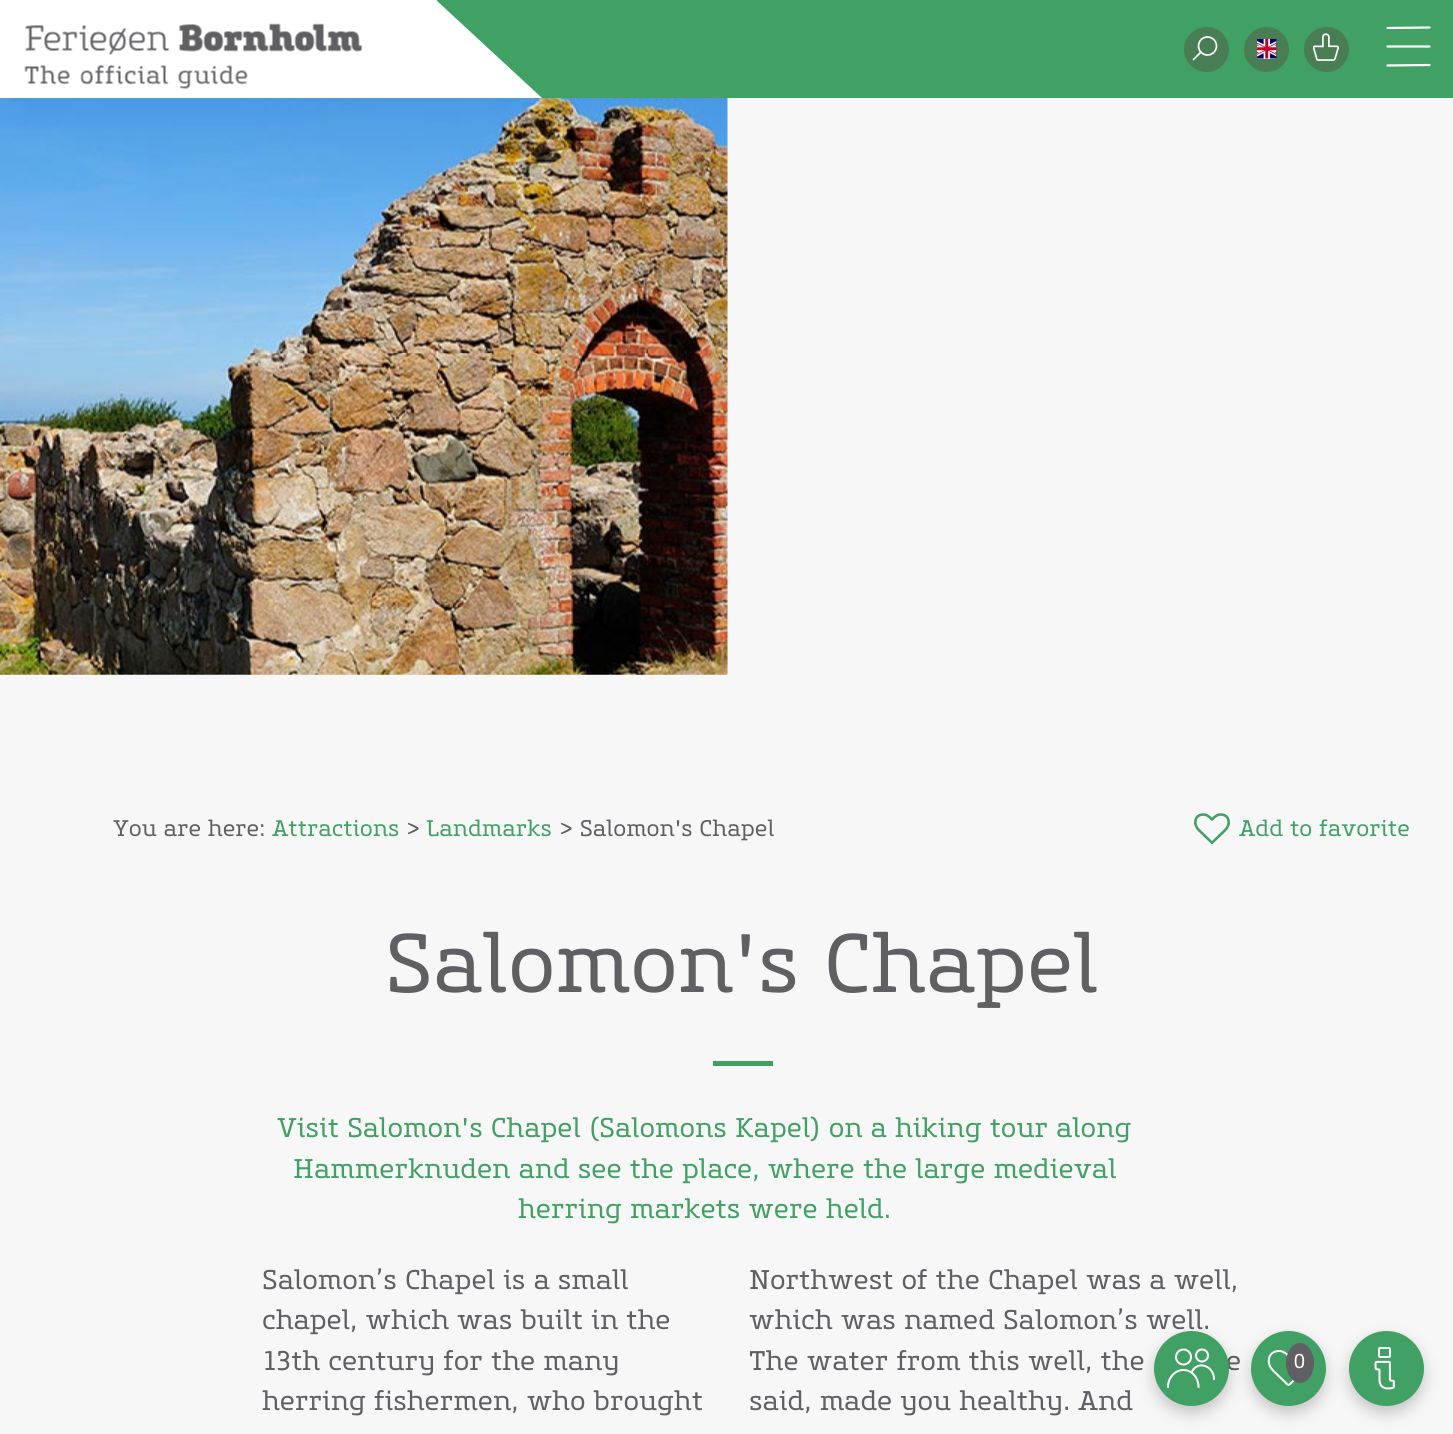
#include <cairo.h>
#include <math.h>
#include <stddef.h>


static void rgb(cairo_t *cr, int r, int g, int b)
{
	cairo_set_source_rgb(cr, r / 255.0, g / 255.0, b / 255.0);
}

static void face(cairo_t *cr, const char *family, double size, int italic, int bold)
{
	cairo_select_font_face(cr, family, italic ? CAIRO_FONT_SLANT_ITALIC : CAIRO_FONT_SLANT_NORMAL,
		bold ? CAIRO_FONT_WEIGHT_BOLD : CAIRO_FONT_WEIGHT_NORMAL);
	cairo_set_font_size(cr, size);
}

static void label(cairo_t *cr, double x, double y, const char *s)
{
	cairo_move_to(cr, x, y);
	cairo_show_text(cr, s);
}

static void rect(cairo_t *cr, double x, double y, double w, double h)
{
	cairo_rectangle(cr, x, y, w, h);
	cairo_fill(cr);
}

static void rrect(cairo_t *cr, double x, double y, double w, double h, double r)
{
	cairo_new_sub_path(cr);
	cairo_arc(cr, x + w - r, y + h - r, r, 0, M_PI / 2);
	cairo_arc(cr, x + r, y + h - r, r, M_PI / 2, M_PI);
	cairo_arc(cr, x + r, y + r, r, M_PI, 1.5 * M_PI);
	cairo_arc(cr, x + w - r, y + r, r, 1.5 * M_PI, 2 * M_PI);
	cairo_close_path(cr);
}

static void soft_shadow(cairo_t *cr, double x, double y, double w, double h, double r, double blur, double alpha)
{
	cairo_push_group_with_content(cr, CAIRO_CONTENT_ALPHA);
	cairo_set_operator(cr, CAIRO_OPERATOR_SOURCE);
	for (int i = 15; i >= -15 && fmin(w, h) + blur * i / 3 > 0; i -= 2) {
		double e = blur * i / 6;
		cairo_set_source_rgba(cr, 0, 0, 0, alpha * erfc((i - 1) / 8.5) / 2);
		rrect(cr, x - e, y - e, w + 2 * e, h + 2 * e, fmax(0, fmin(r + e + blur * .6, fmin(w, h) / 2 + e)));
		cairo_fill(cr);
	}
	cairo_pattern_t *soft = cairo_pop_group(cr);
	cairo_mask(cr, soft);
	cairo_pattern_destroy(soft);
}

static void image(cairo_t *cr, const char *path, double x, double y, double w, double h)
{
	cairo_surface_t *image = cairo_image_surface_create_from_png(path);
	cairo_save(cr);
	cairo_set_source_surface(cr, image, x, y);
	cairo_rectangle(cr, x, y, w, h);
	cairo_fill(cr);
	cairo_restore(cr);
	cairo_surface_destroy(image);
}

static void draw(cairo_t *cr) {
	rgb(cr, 247, 247, 247);
	cairo_paint(cr);
	rgb(cr, 255, 255, 255);
	rect(cr, 0, 0, 437, 98);
	image(cr, "image0.png", 24, 23, 339, 66);
	rgb(cr, 65, 160, 100);
	rect(cr, 437, 0, 1016, 98);
	rgb(cr, 255, 255, 255);
	cairo_new_path(cr);
	cairo_move_to(cr, 436, 98);
	cairo_line_to(cr, 436, 0);
	cairo_line_to(cr, 542, 98);
	cairo_close_path(cr);
	cairo_fill(cr);
	rgb(cr, 73, 125, 84);
	cairo_arc(cr, 1206.5, 49.5, 22.5, 0, 2 * M_PI);
	cairo_fill(cr);
	cairo_new_path(cr);
	cairo_move_to(cr, 1193.5, 59.5);
	cairo_line_to(cr, 1201, 52);
	rgb(cr, 255, 255, 255);
	cairo_set_line_width(cr, 1.7);
	cairo_set_line_cap(cr, CAIRO_LINE_CAP_ROUND);
	cairo_set_line_join(cr, CAIRO_LINE_JOIN_ROUND);
	cairo_stroke(cr);
	cairo_arc(cr, 1207.5, 46, 9, 0, 2 * M_PI);
	cairo_set_line_cap(cr, CAIRO_LINE_CAP_BUTT);
	cairo_set_line_join(cr, CAIRO_LINE_JOIN_MITER);
	cairo_stroke(cr);
	rgb(cr, 73, 125, 84);
	cairo_arc(cr, 1266.5, 49.5, 22.5, 0, 2 * M_PI);
	cairo_fill(cr);
	image(cr, "image1.png", 1257, 39, 20, 20);
	cairo_arc(cr, 1326.5, 49.5, 22.5, 0, 2 * M_PI);
	cairo_fill(cr);
	image(cr, "image2.png", 1313, 33, 26, 28);
	cairo_new_path(cr);
	cairo_move_to(cr, 1387.5, 65.5);
	cairo_line_to(cr, 1429.5, 65);
	cairo_move_to(cr, 1387.5, 46.5);
	cairo_line_to(cr, 1429.5, 46.5);
	cairo_move_to(cr, 1387.5, 28);
	cairo_line_to(cr, 1429.5, 27.5);
	rgb(cr, 255, 255, 255);
	cairo_set_line_width(cr, 2.2);
	cairo_set_line_cap(cr, CAIRO_LINE_CAP_ROUND);
	cairo_set_line_join(cr, CAIRO_LINE_JOIN_ROUND);
	cairo_stroke(cr);
	image(cr, "image3.png", 0, 98, 728, 577);
	face(cr, "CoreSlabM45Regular", 22.5, 0, 0);
	rgb(cr, 95, 95, 100);
	label(cr, 113, 836, "You are here:");
	rgb(cr, 65, 160, 100);
	label(cr, 272, 836, "Attractions");
	rgb(cr, 95, 95, 100);
	label(cr, 406, 836, ">");
	rgb(cr, 65, 160, 100);
	label(cr, 426, 836, "Landmarks");
	rgb(cr, 95, 95, 100);
	label(cr, 559, 836, "> Salomon's Chapel");
	image(cr, "image4.png", 1194, 813, 36, 31);
	rgb(cr, 65, 160, 100);
	label(cr, 1239, 836, "Add to favorite");
	face(cr, "CoreSlabM45Regular", 82.5, 0, 0);
	rgb(cr, 95, 95, 100);
	label(cr, 385, 992, "Salomon's Chapel");
	rgb(cr, 65, 160, 100);
	rect(cr, 713, 1061, 60, 5);
	face(cr, "CoreSlabM45Regular", 27, 0, 0);
	label(cr, 277, 1137, "Visit Salomon's Chapel (Salomons Kapel) on a hiking tour along");
	label(cr, 293, 1178, "Hammerknuden and see the place, where the large medieval");
	label(cr, 518, 1218, "herring markets were held.");
	rgb(cr, 95, 95, 100);
	label(cr, 262, 1289, "Salomon’s Chapel is a small");
	label(cr, 262, 1329, "chapel, which was built in the");
	label(cr, 262, 1370, "13th century for the many");
	label(cr, 262, 1410, "herring fishermen, who brought");
	label(cr, 749, 1289, "Northwest of the Chapel was a well,");
	label(cr, 749, 1329, "which was named Salomon’s well.");
	label(cr, 749, 1370, "The water from this well, the");
	label(cr, 1226, 1370, "e");
	label(cr, 749, 1410, "said, made you healthy. And");
	rgb(cr, 0, 0, 0);
	soft_shadow(cr, 1154, 1338, 75, 75, 37.5, 7.5, 0.2);
	rgb(cr, 65, 160, 100);
	cairo_arc(cr, 1191.5, 1368.5, 37.5, 0, 2 * M_PI);
	cairo_fill(cr);
	cairo_new_path(cr);
	cairo_move_to(cr, 1168, 1387);
	cairo_curve_to(cr, 1168, 1377.5, 1175, 1370, 1183.5, 1370);
	cairo_curve_to(cr, 1192, 1370, 1198.5, 1377.5, 1198.5, 1387);
	rgb(cr, 255, 255, 255);
	cairo_set_line_width(cr, 2);
	cairo_stroke(cr);
	cairo_arc(cr, 1183.5, 1357, 7.5, 0, 2 * M_PI);
	cairo_set_line_cap(cr, CAIRO_LINE_CAP_BUTT);
	cairo_set_line_join(cr, CAIRO_LINE_JOIN_MITER);
	cairo_stroke(cr);
	cairo_new_path(cr);
	cairo_move_to(cr, 1192, 1371.5);
	cairo_curve_to(cr, 1198, 1360, 1214, 1366, 1214, 1379);
	cairo_set_line_cap(cr, CAIRO_LINE_CAP_ROUND);
	cairo_set_line_join(cr, CAIRO_LINE_JOIN_ROUND);
	cairo_stroke(cr);
	cairo_arc(cr, 1202, 1355.5, 6, 0, 2 * M_PI);
	cairo_set_line_cap(cr, CAIRO_LINE_CAP_BUTT);
	cairo_set_line_join(cr, CAIRO_LINE_JOIN_MITER);
	cairo_stroke(cr);
	rgb(cr, 0, 0, 0);
	soft_shadow(cr, 1251, 1338, 75, 75, 37.5, 7.5, 0.2);
	rgb(cr, 65, 160, 100);
	cairo_arc(cr, 1288.5, 1368.5, 37.5, 0, 2 * M_PI);
	cairo_fill(cr);
	image(cr, "image5.png", 1267, 1350, 28, 36);
	rgb(cr, 95, 95, 100);
	cairo_new_path(cr);
	cairo_move_to(cr, 1300, 1343);
	cairo_curve_to(cr, 1307.5, 1343, 1314, 1352, 1314, 1363);
	cairo_curve_to(cr, 1314, 1374, 1307.5, 1383, 1300, 1383);
	cairo_curve_to(cr, 1292.5, 1383, 1286, 1374, 1286, 1363);
	cairo_curve_to(cr, 1286, 1352, 1292.5, 1343, 1300, 1343);
	cairo_close_path(cr);
	cairo_fill(cr);
	face(cr, "CoreSlabM45Regular", 20, 0, 0);
	rgb(cr, 255, 255, 255);
	label(cr, 1294, 1368, "0");
	rgb(cr, 0, 0, 0);
	soft_shadow(cr, 1349, 1338, 75, 75, 37.5, 7.5, 0.2);
	rgb(cr, 65, 160, 100);
	cairo_arc(cr, 1386.5, 1368.5, 37.5, 0, 2 * M_PI);
	cairo_fill(cr);
	image(cr, "image6.png", 1374, 1347, 21, 43);
}

int main(void) {
	cairo_surface_t *surface = cairo_image_surface_create(CAIRO_FORMAT_RGB24, 1453, 1434);
	cairo_t *cr = cairo_create(surface);
	cairo_font_options_t *options = cairo_font_options_create();
	cairo_font_options_set_hint_metrics(options, CAIRO_HINT_METRICS_OFF);
	cairo_font_options_set_hint_style(options, CAIRO_HINT_STYLE_NONE);
	cairo_set_font_options(cr, options);
	cairo_set_miter_limit(cr, 4);
	draw(cr);
	cairo_surface_write_to_png(surface, "render.png");
	cairo_font_options_destroy(options);
	cairo_destroy(cr);
	cairo_surface_destroy(surface);
	return 0;
}
